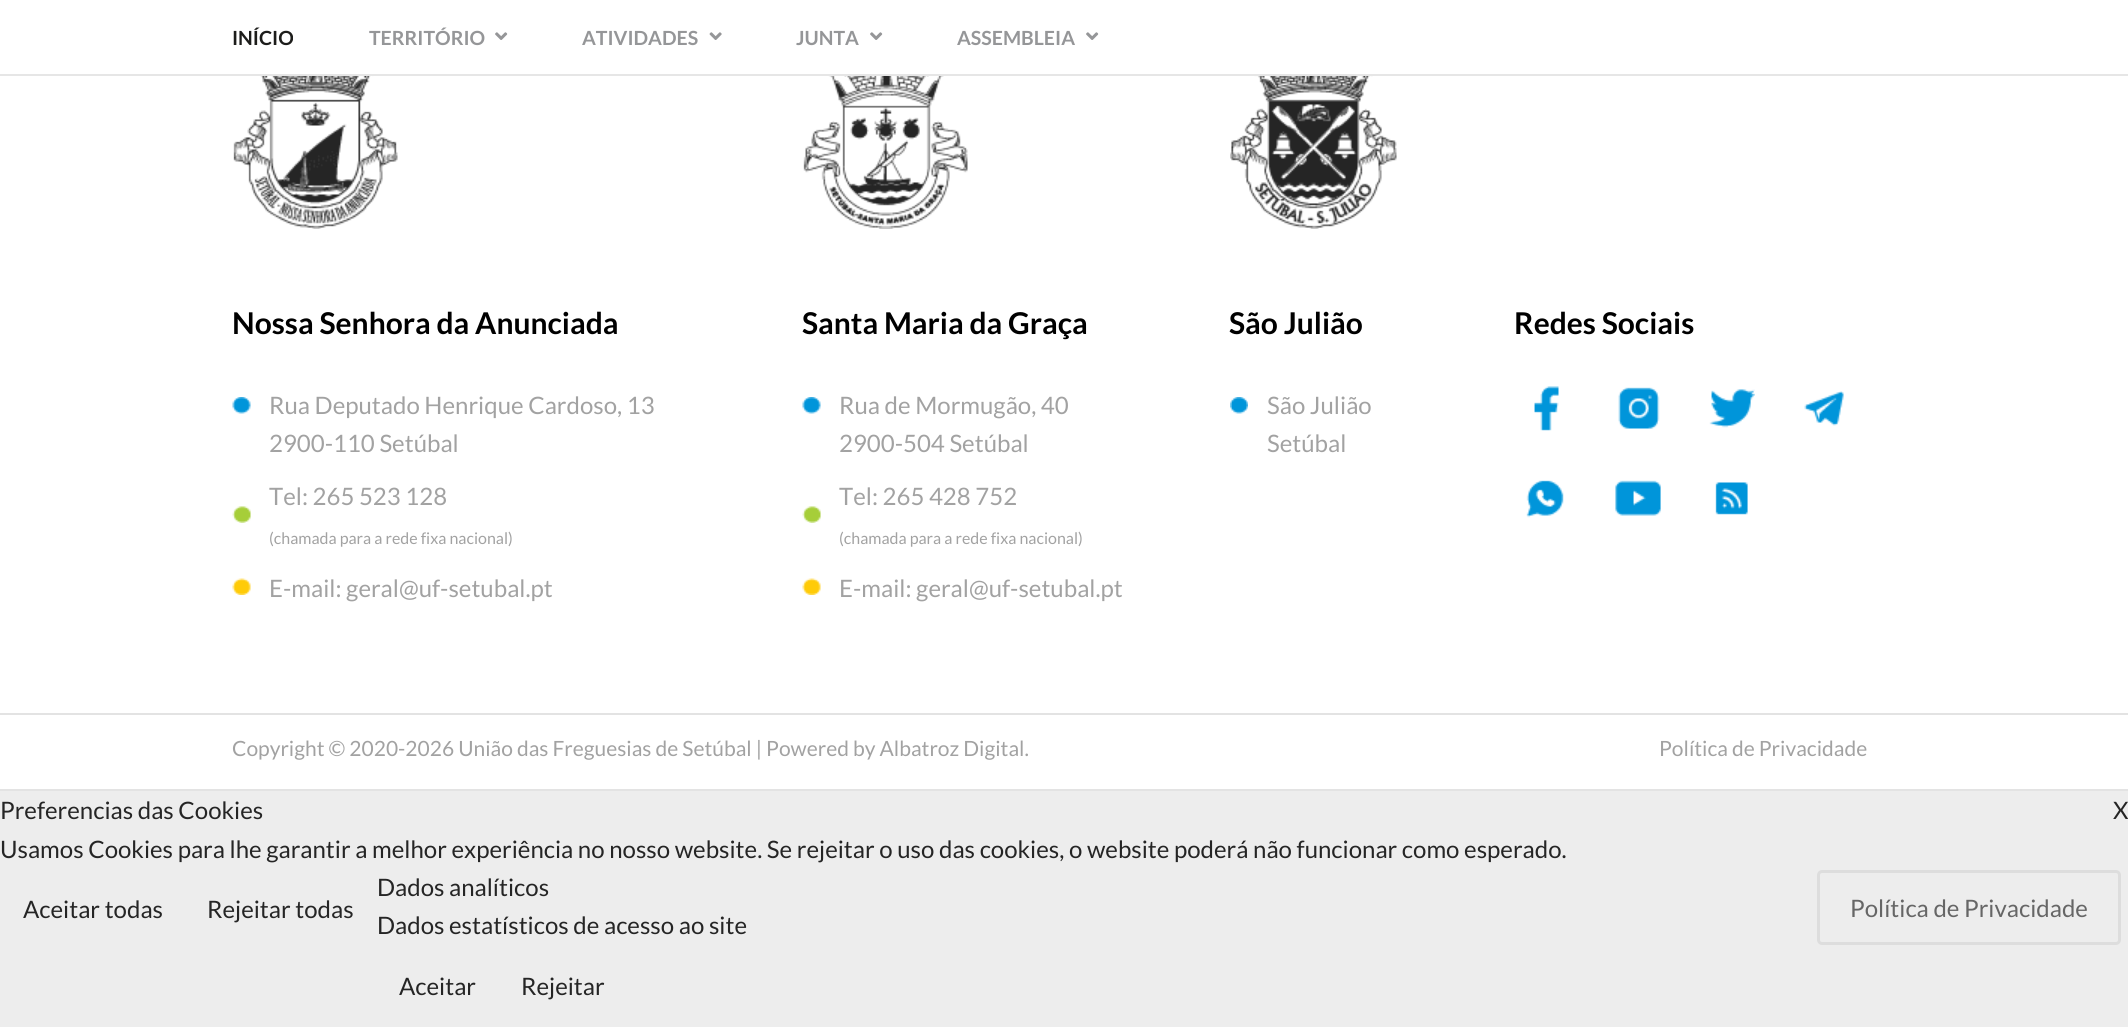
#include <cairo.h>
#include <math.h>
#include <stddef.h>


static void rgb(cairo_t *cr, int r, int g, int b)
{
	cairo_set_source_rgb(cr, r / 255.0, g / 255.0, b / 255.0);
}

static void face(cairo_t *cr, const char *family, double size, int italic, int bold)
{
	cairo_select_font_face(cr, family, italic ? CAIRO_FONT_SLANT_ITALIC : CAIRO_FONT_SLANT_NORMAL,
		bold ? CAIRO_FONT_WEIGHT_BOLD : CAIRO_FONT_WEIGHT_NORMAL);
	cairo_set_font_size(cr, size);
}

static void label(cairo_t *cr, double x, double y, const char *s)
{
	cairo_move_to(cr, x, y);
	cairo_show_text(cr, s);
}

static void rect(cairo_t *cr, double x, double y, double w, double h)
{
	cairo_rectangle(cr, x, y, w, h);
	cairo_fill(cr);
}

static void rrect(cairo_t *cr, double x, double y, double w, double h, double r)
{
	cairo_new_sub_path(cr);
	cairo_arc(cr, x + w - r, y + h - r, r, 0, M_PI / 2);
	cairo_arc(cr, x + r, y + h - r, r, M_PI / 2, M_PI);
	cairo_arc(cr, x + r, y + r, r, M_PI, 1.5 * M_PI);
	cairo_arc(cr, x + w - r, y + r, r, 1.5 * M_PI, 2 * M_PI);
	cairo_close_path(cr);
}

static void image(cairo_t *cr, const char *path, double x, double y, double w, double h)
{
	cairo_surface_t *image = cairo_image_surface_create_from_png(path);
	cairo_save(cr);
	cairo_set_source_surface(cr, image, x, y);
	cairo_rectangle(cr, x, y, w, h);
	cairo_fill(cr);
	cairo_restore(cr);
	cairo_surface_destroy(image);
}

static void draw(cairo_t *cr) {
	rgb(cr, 237, 237, 237);
	cairo_paint(cr);
	rgb(cr, 255, 255, 255);
	rect(cr, 0, 0, 2128, 74);
	rgb(cr, 230, 230, 230);
	rect(cr, 0, 74, 2128, 2);
	face(cr, "Lato", 19.5, 0, 1);
	rgb(cr, 29, 29, 27);
	label(cr, 232, 45, "INÍCIO");
	rgb(cr, 149, 150, 152);
	label(cr, 369, 45, "TERRITÓRIO");
	image(cr, "image0.png", 495, 32, 13, 8);
	label(cr, 582, 45, "ATIVIDADES");
	image(cr, "image1.png", 709, 32, 13, 8);
	label(cr, 796, 45, "JUNTA");
	image(cr, "image0.png", 870, 32, 13, 8);
	label(cr, 957, 45, "ASSEMBLEIA");
	image(cr, "image0.png", 1086, 32, 13, 8);
	rgb(cr, 255, 255, 255);
	rect(cr, 0, 76, 2128, 637);
	image(cr, "image2.png", 233, 76, 165, 153);
	face(cr, "Lato", 30, 0, 1);
	rgb(cr, 0, 0, 0);
	label(cr, 232, 334, "Nossa Senhora da Anunciada");
	image(cr, "image3.png", 232, 397, 19, 17);
	face(cr, "Lato", 24, 0, 0);
	rgb(cr, 162, 162, 162);
	label(cr, 269, 414, "Rua Deputado Henrique Cardoso, 13");
	label(cr, 269, 452, "2900-110 Setúbal");
	image(cr, "image4.png", 232, 506, 19, 17);
	label(cr, 269, 505, "Tel: 265 523 128");
	face(cr, "Lato", 16, 0, 0);
	label(cr, 269, 544, "(chamada para a rede fixa nacional)");
	image(cr, "image5.png", 232, 578, 19, 17);
	face(cr, "Lato", 24, 0, 0);
	label(cr, 269, 597, "E-mail: geral@uf-setubal.pt");
	image(cr, "image6.png", 803, 76, 165, 153);
	face(cr, "Lato", 30, 0, 1);
	rgb(cr, 0, 0, 0);
	label(cr, 802, 334, "Santa Maria da Graça");
	image(cr, "image7.png", 802, 397, 19, 17);
	face(cr, "Lato", 24, 0, 0);
	rgb(cr, 162, 162, 162);
	label(cr, 839, 414, "Rua de Mormugão, 40");
	label(cr, 839, 452, "2900-504 Setúbal");
	image(cr, "image8.png", 802, 506, 19, 17);
	label(cr, 839, 505, "Tel: 265 428 752");
	face(cr, "Lato", 16, 0, 0);
	label(cr, 839, 544, "(chamada para a rede fixa nacional)");
	image(cr, "image9.png", 802, 578, 19, 17);
	face(cr, "Lato", 24, 0, 0);
	label(cr, 839, 597, "E-mail: geral@uf-setubal.pt");
	image(cr, "image10.png", 1230, 76, 167, 153);
	face(cr, "Lato", 30, 0, 1);
	rgb(cr, 0, 0, 0);
	label(cr, 1229, 334, "São Julião");
	image(cr, "image11.png", 1230, 397, 18, 17);
	face(cr, "Lato", 24, 0, 0);
	rgb(cr, 162, 162, 162);
	label(cr, 1267, 414, "São Julião");
	label(cr, 1267, 452, "Setúbal");
	face(cr, "Lato", 30, 0, 1);
	rgb(cr, 0, 0, 0);
	label(cr, 1514, 334, "Redes Sociais");
	image(cr, "image12.png", 1534, 386, 25, 45);
	image(cr, "image13.png", 1618, 387, 42, 42);
	image(cr, "image14.png", 1709, 389, 46, 39);
	image(cr, "image15.png", 1804, 391, 40, 35);
	image(cr, "image16.png", 1526, 480, 38, 38);
	image(cr, "image17.png", 1615, 480, 46, 36);
	image(cr, "image18.png", 1715, 482, 33, 33);
	rgb(cr, 255, 255, 255);
	rect(cr, 0, 715, 2128, 74);
	rgb(cr, 227, 227, 227);
	rect(cr, 0, 713, 2128, 2);
	rect(cr, 0, 789, 2128, 2);
	face(cr, "Lato", 21, 0, 0);
	rgb(cr, 162, 162, 162);
	label(cr, 232, 756, "Copyright © 2020-2026 União das Freguesias de Setúbal | Powered by Albatroz Digital.");
	label(cr, 1659, 756, "Política de Privacidade");
	face(cr, "Lato", 24, 0, 0);
	rgb(cr, 37, 37, 37);
	label(cr, 0, 819, "Preferencias das Cookies");
	label(cr, 2113, 819, "X");
	label(cr, 0, 858, "Usamos Cookies para lhe garantir a melhor experiência no nosso website. Se rejeitar o uso das cookies, o website poderá não funcionar como esperado.");
	label(cr, 377, 896, "Dados analíticos");
	label(cr, 377, 934, "Dados estatísticos de acesso ao site");
	label(cr, 399, 995, "Aceitar");
	label(cr, 521, 995, "Rejeitar");
	label(cr, 23, 918, "Aceitar todas");
	label(cr, 207, 918, "Rejeitar todas");
	rrect(cr, 1818.5, 871.5, 301, 72, 3.5);
	rgb(cr, 221, 221, 221);
	cairo_set_line_width(cr, 3);
	cairo_stroke(cr);
	rgb(cr, 102, 102, 102);
	label(cr, 1850, 917, "Política de Privacidade");
}

int main(void) {
	cairo_surface_t *surface = cairo_image_surface_create(CAIRO_FORMAT_RGB24, 2128, 1027);
	cairo_t *cr = cairo_create(surface);
	cairo_font_options_t *options = cairo_font_options_create();
	cairo_font_options_set_hint_metrics(options, CAIRO_HINT_METRICS_OFF);
	cairo_font_options_set_hint_style(options, CAIRO_HINT_STYLE_NONE);
	cairo_set_font_options(cr, options);
	cairo_set_miter_limit(cr, 4);
	draw(cr);
	cairo_surface_write_to_png(surface, "render.png");
	cairo_font_options_destroy(options);
	cairo_destroy(cr);
	cairo_surface_destroy(surface);
	return 0;
}
